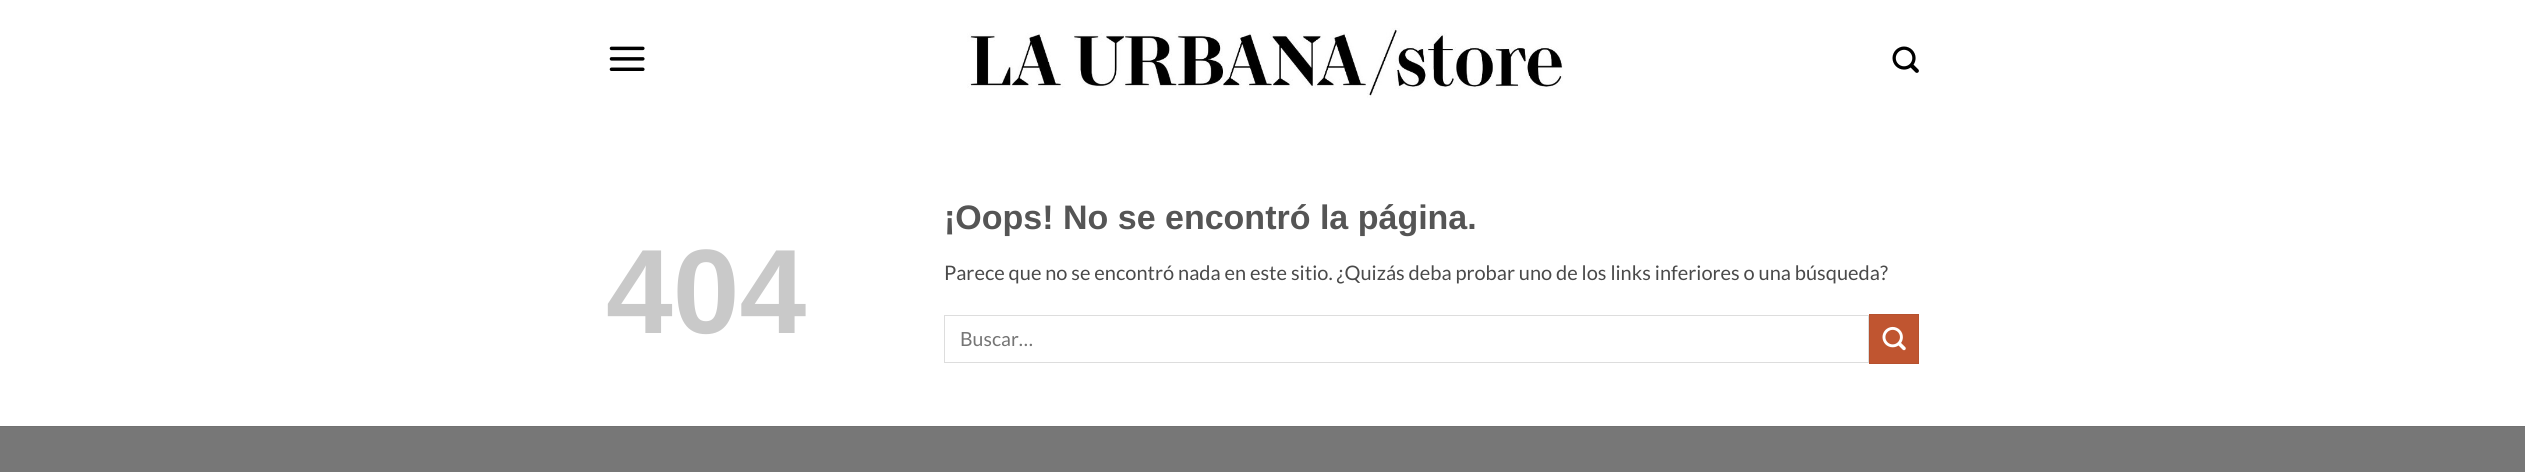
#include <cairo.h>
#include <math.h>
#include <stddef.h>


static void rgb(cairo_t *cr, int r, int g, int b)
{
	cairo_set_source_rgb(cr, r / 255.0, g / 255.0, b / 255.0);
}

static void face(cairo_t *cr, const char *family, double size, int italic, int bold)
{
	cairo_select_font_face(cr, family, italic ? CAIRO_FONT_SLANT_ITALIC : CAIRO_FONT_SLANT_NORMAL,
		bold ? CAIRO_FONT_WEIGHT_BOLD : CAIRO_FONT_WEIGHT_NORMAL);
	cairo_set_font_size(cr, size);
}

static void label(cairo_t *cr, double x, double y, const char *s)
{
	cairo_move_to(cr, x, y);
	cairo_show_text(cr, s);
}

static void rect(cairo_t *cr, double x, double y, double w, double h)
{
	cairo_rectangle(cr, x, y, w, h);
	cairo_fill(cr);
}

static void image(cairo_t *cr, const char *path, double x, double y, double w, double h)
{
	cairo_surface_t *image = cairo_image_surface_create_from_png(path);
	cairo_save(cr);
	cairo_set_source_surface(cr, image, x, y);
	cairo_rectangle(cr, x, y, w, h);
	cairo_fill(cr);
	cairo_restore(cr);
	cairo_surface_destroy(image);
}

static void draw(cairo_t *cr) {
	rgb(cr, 255, 255, 255);
	cairo_paint(cr);
	image(cr, "image0.png", 609, 46, 36, 25);
	image(cr, "image1.png", 967, 28, 596, 70);
	image(cr, "image2.png", 1892, 46, 27, 27);
	face(cr, "Liberation Sans", 120, 0, 1);
	rgb(cr, 201, 201, 201);
	label(cr, 606, 333, "404");
	face(cr, "Liberation Sans", 34, 0, 1);
	rgb(cr, 85, 85, 85);
	label(cr, 944, 229, "¡Oops! No se encontró la página.");
	face(cr, "Lato", 20, 0, 0);
	rgb(cr, 74, 74, 74);
	label(cr, 944, 280, "Parece que no se encontró nada en este sitio. ¿Quizás deba probar uno de los links inferiores o una búsqueda?");
	cairo_rectangle(cr, 944.5, 315.5, 924, 47);
	rgb(cr, 221, 221, 221);
	cairo_set_line_width(cr, 1);
	cairo_stroke(cr);
	face(cr, "Lato", 19.5, 0, 0);
	rgb(cr, 117, 117, 117);
	label(cr, 960, 346, "Buscar…");
	rgb(cr, 192, 85, 48);
	cairo_rectangle(cr, 1869.5, 314.5, 49, 49);
	cairo_fill_preserve(cr);
	rgb(cr, 182, 81, 46);
	cairo_stroke(cr);
	image(cr, "image3.png", 1882, 326, 24, 25);
	rgb(cr, 119, 119, 119);
	rect(cr, 0, 427, 2525, 45);
	rgb(cr, 113, 113, 113);
	rect(cr, 0, 426, 2525, 1);
}

int main(void) {
	cairo_surface_t *surface = cairo_image_surface_create(CAIRO_FORMAT_RGB24, 2525, 472);
	cairo_t *cr = cairo_create(surface);
	cairo_font_options_t *options = cairo_font_options_create();
	cairo_font_options_set_hint_metrics(options, CAIRO_HINT_METRICS_OFF);
	cairo_font_options_set_hint_style(options, CAIRO_HINT_STYLE_NONE);
	cairo_set_font_options(cr, options);
	cairo_set_miter_limit(cr, 4);
	draw(cr);
	cairo_surface_write_to_png(surface, "render.png");
	cairo_font_options_destroy(options);
	cairo_destroy(cr);
	cairo_surface_destroy(surface);
	return 0;
}
